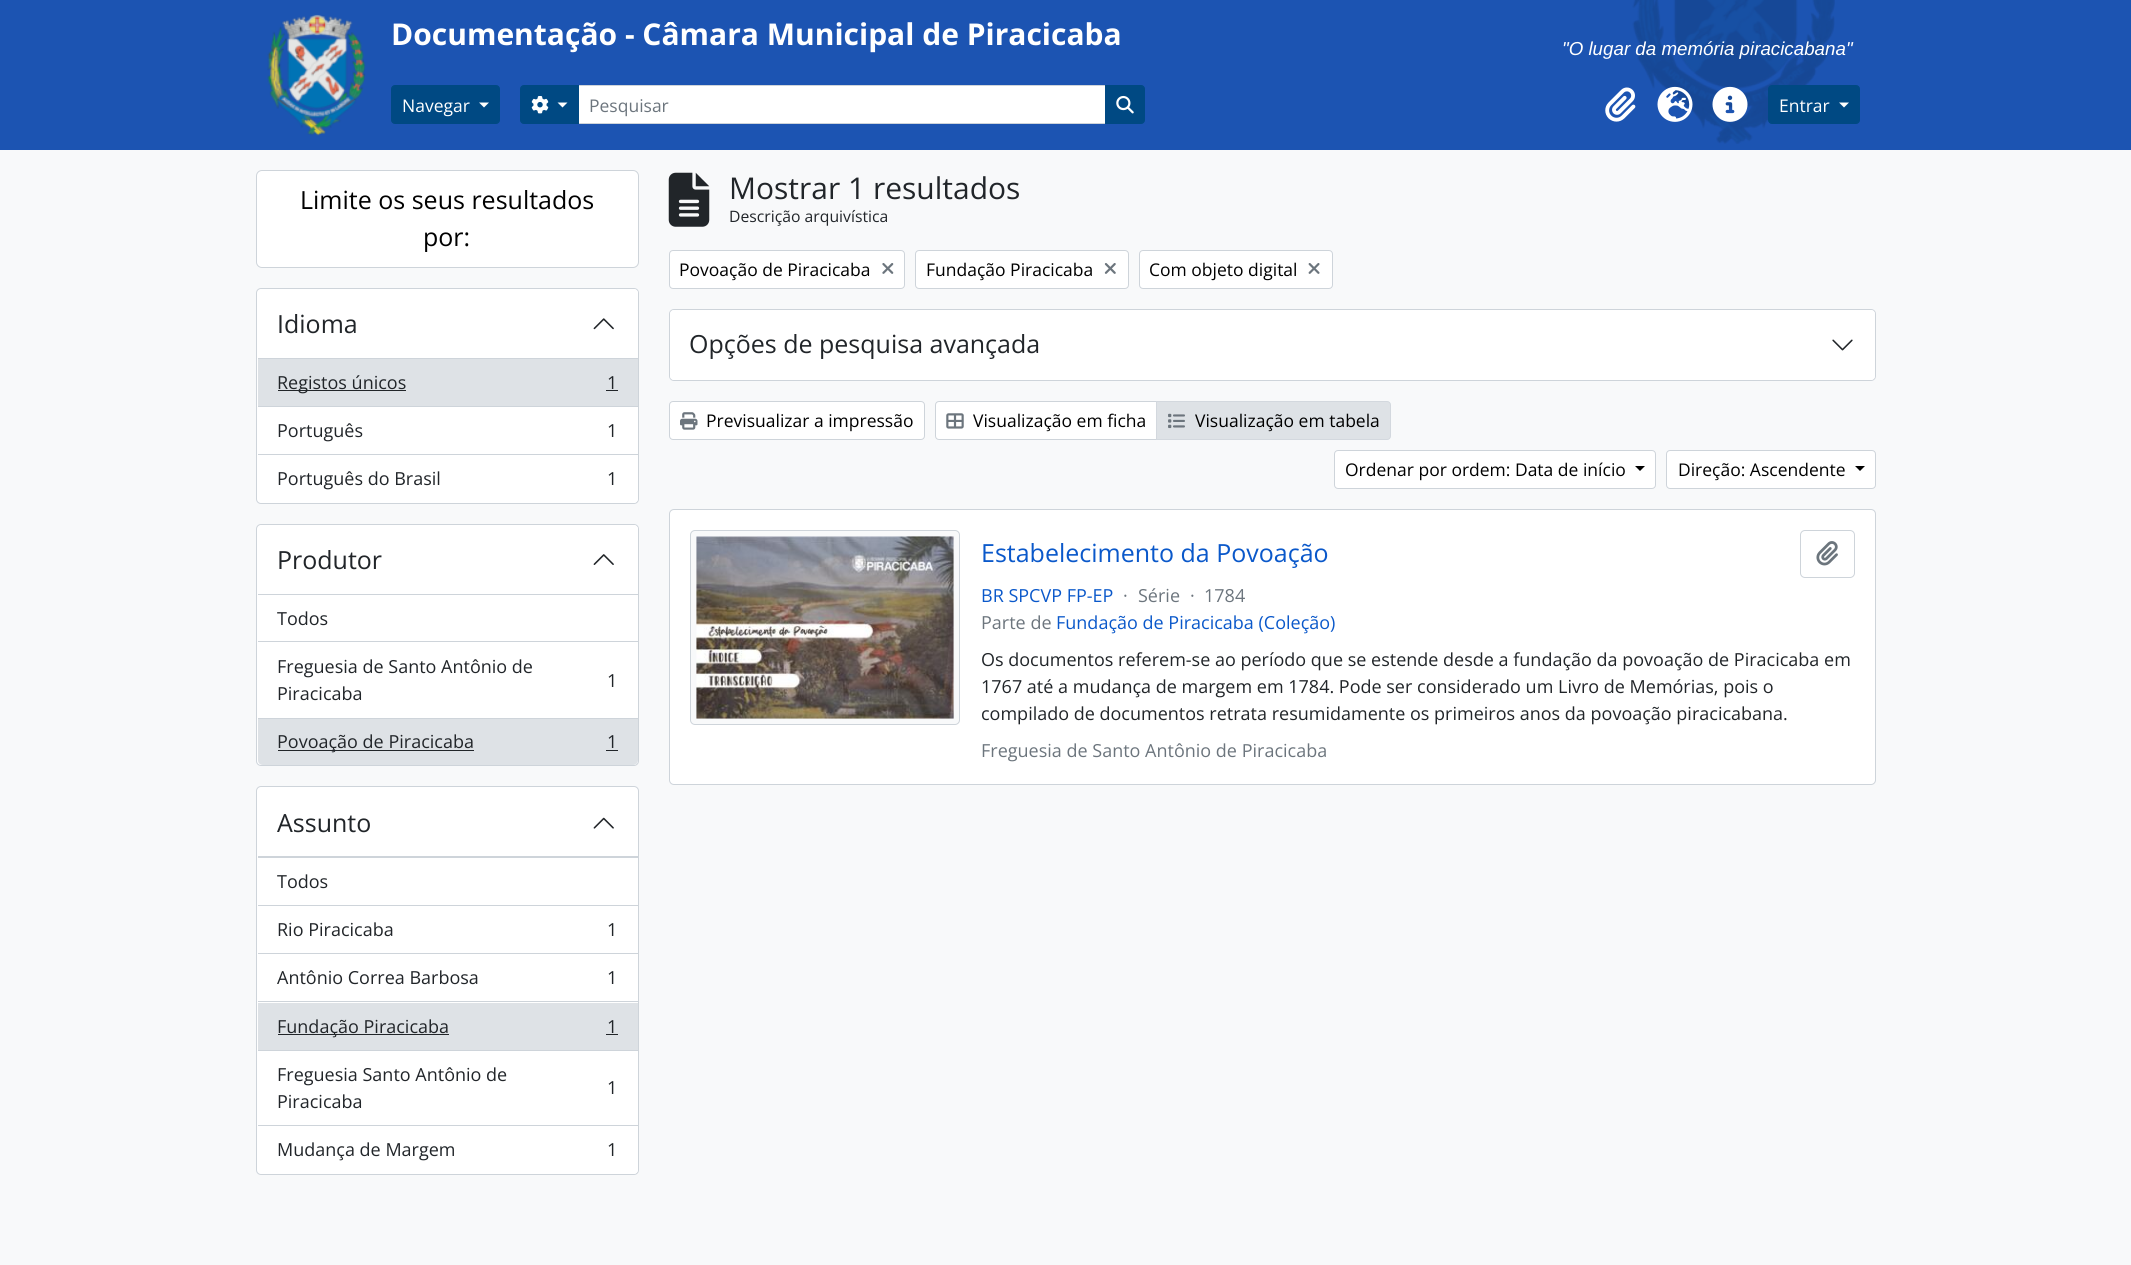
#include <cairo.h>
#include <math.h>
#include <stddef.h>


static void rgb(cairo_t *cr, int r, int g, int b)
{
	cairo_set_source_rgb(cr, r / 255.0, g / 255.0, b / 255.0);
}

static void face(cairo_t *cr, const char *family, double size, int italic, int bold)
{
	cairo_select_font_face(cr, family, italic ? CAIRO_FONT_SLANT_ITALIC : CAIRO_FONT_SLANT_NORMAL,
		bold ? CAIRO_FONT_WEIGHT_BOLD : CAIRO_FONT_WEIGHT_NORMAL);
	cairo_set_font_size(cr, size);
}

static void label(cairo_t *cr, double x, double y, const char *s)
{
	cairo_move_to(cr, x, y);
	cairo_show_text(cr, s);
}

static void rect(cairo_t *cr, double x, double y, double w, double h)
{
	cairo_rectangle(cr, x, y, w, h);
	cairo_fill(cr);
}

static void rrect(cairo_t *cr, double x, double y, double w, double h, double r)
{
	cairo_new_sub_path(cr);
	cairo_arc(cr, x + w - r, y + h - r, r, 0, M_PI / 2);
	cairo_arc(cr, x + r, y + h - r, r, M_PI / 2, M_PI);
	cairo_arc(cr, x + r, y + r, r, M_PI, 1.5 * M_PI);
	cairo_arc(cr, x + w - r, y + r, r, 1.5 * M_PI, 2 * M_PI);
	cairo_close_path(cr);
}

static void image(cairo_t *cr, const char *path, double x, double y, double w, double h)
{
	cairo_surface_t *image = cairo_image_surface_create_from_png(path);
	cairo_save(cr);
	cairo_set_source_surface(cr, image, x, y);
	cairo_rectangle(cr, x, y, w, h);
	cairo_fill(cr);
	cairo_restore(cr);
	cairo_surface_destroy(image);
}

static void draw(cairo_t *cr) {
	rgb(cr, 248, 249, 250);
	cairo_paint(cr);
	rgb(cr, 28, 84, 178);
	rect(cr, 0, 0, 2131, 150);
	image(cr, "image0.png", 1632, 0, 203, 144);
	image(cr, "image1.png", 267, 14, 99, 122);
	face(cr, "Open Sans", 30, 0, 1);
	rgb(cr, 255, 255, 255);
	label(cr, 391, 45, "Documentação - Câmara Municipal de Piracicaba");
	face(cr, "Liberation Sans", 18.75, 1, 0);
	label(cr, 1562, 55, "\"O lugar da memória piracicabana\"");
	rgb(cr, 0, 73, 131);
	rrect(cr, 391.5, 85.5, 108, 38, 3.5);
	cairo_fill_preserve(cr);
	cairo_set_line_width(cr, 1);
	cairo_stroke(cr);
	face(cr, "Open Sans", 17.5, 0, 0);
	rgb(cr, 255, 255, 255);
	label(cr, 402, 112, "Navegar");
	cairo_new_path(cr);
	cairo_move_to(cr, 479, 102.5);
	cairo_line_to(cr, 489, 102.5);
	cairo_line_to(cr, 484, 107.5);
	cairo_close_path(cr);
	cairo_fill(cr);
	cairo_rectangle(cr, 578.5, 85.5, 527, 38);
	cairo_fill_preserve(cr);
	rgb(cr, 206, 212, 218);
	cairo_stroke(cr);
	rgb(cr, 0, 73, 131);
	cairo_new_path(cr);
	cairo_move_to(cr, 524, 85.5);
	cairo_line_to(cr, 578.5, 85.5);
	cairo_line_to(cr, 578.5, 123.5);
	cairo_line_to(cr, 524, 123.5);
	cairo_curve_to(cr, 522, 123.5, 520.5, 122, 520.5, 120);
	cairo_line_to(cr, 520.5, 89);
	cairo_curve_to(cr, 520.5, 87, 522, 85.5, 524, 85.5);
	cairo_close_path(cr);
	cairo_fill_preserve(cr);
	cairo_stroke(cr);
	image(cr, "image2.png", 531, 96, 18, 18);
	rgb(cr, 255, 255, 255);
	cairo_new_path(cr);
	cairo_move_to(cr, 557.5, 102.5);
	cairo_line_to(cr, 567.5, 102.5);
	cairo_line_to(cr, 562.5, 107.5);
	cairo_close_path(cr);
	cairo_fill(cr);
	rgb(cr, 108, 117, 125);
	label(cr, 589, 112, "Pesquisar");
	rgb(cr, 0, 73, 131);
	cairo_new_path(cr);
	cairo_move_to(cr, 1105.5, 85.5);
	cairo_line_to(cr, 1141, 85.5);
	cairo_curve_to(cr, 1143, 85.5, 1144.5, 87, 1144.5, 89);
	cairo_line_to(cr, 1144.5, 120);
	cairo_curve_to(cr, 1144.5, 122, 1143, 123.5, 1141, 123.5);
	cairo_line_to(cr, 1105.5, 123.5);
	cairo_close_path(cr);
	cairo_fill_preserve(cr);
	cairo_stroke(cr);
	image(cr, "image3.png", 1116, 95, 18, 19);
	image(cr, "image4.png", 1605, 87, 31, 35);
	image(cr, "image5.png", 1657, 86, 36, 36);
	image(cr, "image6.png", 1712, 86, 36, 36);
	rrect(cr, 1768.5, 85.5, 91, 38, 3.5);
	cairo_fill_preserve(cr);
	cairo_stroke(cr);
	rgb(cr, 255, 255, 255);
	label(cr, 1779, 112, "Entrar");
	cairo_new_path(cr);
	cairo_move_to(cr, 1839, 102.5);
	cairo_line_to(cr, 1849, 102.5);
	cairo_line_to(cr, 1844, 107.5);
	cairo_close_path(cr);
	cairo_fill(cr);
	rrect(cr, 256.5, 170.5, 382, 97, 5.5);
	cairo_fill_preserve(cr);
	rgb(cr, 206, 212, 218);
	cairo_stroke(cr);
	face(cr, "Open Sans", 25, 0, 0);
	rgb(cr, 0, 0, 0);
	label(cr, 300, 209, "Limite os seus resultados");
	label(cr, 423, 246, "por:");
	rgb(cr, 255, 255, 255);
	rrect(cr, 256.5, 288.5, 382, 215, 4.5);
	cairo_fill_preserve(cr);
	rgb(cr, 206, 212, 218);
	cairo_stroke(cr);
	rgb(cr, 255, 255, 255);
	cairo_new_path(cr);
	cairo_move_to(cr, 262, 289);
	cairo_line_to(cr, 634, 289);
	cairo_curve_to(cr, 636, 289, 638, 291, 638, 293);
	cairo_line_to(cr, 638, 359);
	cairo_line_to(cr, 258, 359);
	cairo_line_to(cr, 258, 293);
	cairo_curve_to(cr, 258, 291, 260, 289, 262, 289);
	cairo_close_path(cr);
	cairo_fill(cr);
	rgb(cr, 206, 212, 218);
	rect(cr, 258, 358, 380, 1);
	rgb(cr, 33, 37, 41);
	label(cr, 277, 333, "Idioma");
	image(cr, "image7.png", 593, 318, 21, 12);
	rgb(cr, 222, 226, 230);
	rect(cr, 258, 359, 380, 47);
	rgb(cr, 206, 212, 218);
	rect(cr, 258, 406, 380, 1);
	rgb(cr, 33, 37, 41);
	rect(cr, 278, 390, 128, 1);
	face(cr, "Open Sans", 18, 0, 0);
	label(cr, 277, 389, "Registos únicos");
	label(cr, 607, 389, "1");
	rect(cr, 606, 390, 12, 1);
	rgb(cr, 206, 212, 218);
	rect(cr, 258, 454, 380, 1);
	rgb(cr, 33, 37, 41);
	label(cr, 277, 437, "Português");
	label(cr, 607, 437, "1");
	rgb(cr, 255, 255, 255);
	cairo_new_path(cr);
	cairo_move_to(cr, 258, 455);
	cairo_line_to(cr, 638, 455);
	cairo_line_to(cr, 638, 498);
	cairo_curve_to(cr, 638, 501, 636, 503, 633, 503);
	cairo_line_to(cr, 263, 503);
	cairo_curve_to(cr, 260, 503, 258, 501, 258, 498);
	cairo_close_path(cr);
	cairo_fill(cr);
	rgb(cr, 33, 37, 41);
	label(cr, 277, 485, "Português do Brasil");
	label(cr, 607, 485, "1");
	rgb(cr, 255, 255, 255);
	rrect(cr, 256.5, 524.5, 382, 241, 4.5);
	cairo_fill_preserve(cr);
	rgb(cr, 206, 212, 218);
	cairo_stroke(cr);
	rgb(cr, 255, 255, 255);
	cairo_new_path(cr);
	cairo_move_to(cr, 262, 525);
	cairo_line_to(cr, 634, 525);
	cairo_curve_to(cr, 636, 525, 638, 527, 638, 529);
	cairo_line_to(cr, 638, 595);
	cairo_line_to(cr, 258, 595);
	cairo_line_to(cr, 258, 529);
	cairo_curve_to(cr, 258, 527, 260, 525, 262, 525);
	cairo_close_path(cr);
	cairo_fill(cr);
	rgb(cr, 206, 212, 218);
	rect(cr, 258, 594, 380, 1);
	face(cr, "Open Sans", 25, 0, 0);
	rgb(cr, 33, 37, 41);
	label(cr, 277, 569, "Produtor");
	image(cr, "image8.png", 593, 554, 21, 11);
	rgb(cr, 206, 212, 218);
	rect(cr, 258, 641, 380, 1);
	face(cr, "Open Sans", 18, 0, 0);
	rgb(cr, 33, 37, 41);
	label(cr, 277, 625, "Todos");
	rgb(cr, 206, 212, 218);
	rect(cr, 258, 718, 380, 1);
	rgb(cr, 33, 37, 41);
	label(cr, 277, 673, "Freguesia de Santo Antônio de");
	label(cr, 607, 687, "1");
	label(cr, 277, 700, "Piracicaba");
	rgb(cr, 222, 226, 230);
	cairo_new_path(cr);
	cairo_move_to(cr, 258, 719);
	cairo_line_to(cr, 638, 719);
	cairo_line_to(cr, 638, 760);
	cairo_curve_to(cr, 638, 763, 636, 765, 633, 765);
	cairo_line_to(cr, 263, 765);
	cairo_curve_to(cr, 260, 765, 258, 763, 258, 760);
	cairo_close_path(cr);
	cairo_fill(cr);
	rgb(cr, 33, 37, 41);
	rect(cr, 278, 750, 196, 1);
	label(cr, 277, 748, "Povoação de Piracicaba");
	label(cr, 607, 748, "1");
	rect(cr, 606, 750, 12, 1);
	rgb(cr, 255, 255, 255);
	rrect(cr, 256.5, 786.5, 382, 388, 4.5);
	cairo_fill_preserve(cr);
	rgb(cr, 206, 212, 218);
	cairo_stroke(cr);
	rect(cr, 258, 856, 380, 2);
	face(cr, "Open Sans", 25, 0, 0);
	rgb(cr, 33, 37, 41);
	label(cr, 277, 832, "Assunto");
	image(cr, "image9.png", 593, 817, 21, 12);
	rgb(cr, 206, 212, 218);
	rect(cr, 258, 905, 380, 1);
	face(cr, "Open Sans", 18, 0, 0);
	rgb(cr, 33, 37, 41);
	label(cr, 277, 888, "Todos");
	rgb(cr, 206, 212, 218);
	rect(cr, 258, 953, 380, 1);
	rgb(cr, 33, 37, 41);
	label(cr, 277, 936, "Rio Piracicaba");
	label(cr, 607, 936, "1");
	rgb(cr, 206, 212, 218);
	rect(cr, 258, 1001, 380, 1);
	rgb(cr, 33, 37, 41);
	label(cr, 277, 984, "Antônio Correa Barbosa");
	label(cr, 607, 984, "1");
	rgb(cr, 222, 226, 230);
	rect(cr, 258, 1003, 380, 47);
	rgb(cr, 206, 212, 218);
	rect(cr, 258, 1050, 380, 1);
	rgb(cr, 33, 37, 41);
	rect(cr, 278, 1034, 171, 1);
	label(cr, 277, 1033, "Fundação Piracicaba");
	label(cr, 607, 1033, "1");
	rect(cr, 606, 1034, 12, 1);
	rgb(cr, 206, 212, 218);
	rect(cr, 258, 1125, 380, 1);
	rgb(cr, 33, 37, 41);
	label(cr, 277, 1081, "Freguesia Santo Antônio de");
	label(cr, 607, 1094, "1");
	label(cr, 277, 1108, "Piracicaba");
	rgb(cr, 255, 255, 255);
	cairo_new_path(cr);
	cairo_move_to(cr, 258, 1126);
	cairo_line_to(cr, 638, 1126);
	cairo_line_to(cr, 638, 1169);
	cairo_curve_to(cr, 638, 1172, 636, 1174, 633, 1174);
	cairo_line_to(cr, 263, 1174);
	cairo_curve_to(cr, 260, 1174, 258, 1172, 258, 1169);
	cairo_close_path(cr);
	cairo_fill(cr);
	rgb(cr, 33, 37, 41);
	label(cr, 277, 1156, "Mudança de Margem");
	label(cr, 607, 1156, "1");
	image(cr, "image10.png", 668, 172, 42, 55);
	face(cr, "Open Sans", 30, 0, 0);
	label(cr, 729, 199, "Mostrar 1 resultados");
	face(cr, "Open Sans", 15.75, 0, 0);
	label(cr, 729, 222, "Descrição arquivística");
	rgb(cr, 255, 255, 255);
	rrect(cr, 669.5, 250.5, 235, 38, 3.5);
	cairo_fill_preserve(cr);
	rgb(cr, 206, 212, 218);
	cairo_stroke(cr);
	face(cr, "Open Sans", 17.5, 0, 0);
	rgb(cr, 0, 0, 0);
	label(cr, 679, 276, "Povoação de Piracicaba");
	image(cr, "image11.png", 882, 263, 12, 11);
	rgb(cr, 255, 255, 255);
	rrect(cr, 915.5, 250.5, 213, 38, 3.5);
	cairo_fill_preserve(cr);
	rgb(cr, 206, 212, 218);
	cairo_stroke(cr);
	rgb(cr, 0, 0, 0);
	label(cr, 926, 276, "Fundação Piracicaba");
	image(cr, "image12.png", 1104, 263, 12, 11);
	rgb(cr, 255, 255, 255);
	rrect(cr, 1139.5, 250.5, 193, 38, 3.5);
	cairo_fill_preserve(cr);
	rgb(cr, 206, 212, 218);
	cairo_stroke(cr);
	rgb(cr, 0, 0, 0);
	label(cr, 1149, 276, "Com objeto digital");
	image(cr, "image13.png", 1308, 263, 12, 11);
	rrect(cr, 669.5, 309.5, 1206, 71, 4.5);
	rgb(cr, 206, 212, 218);
	cairo_stroke(cr);
	rgb(cr, 255, 255, 255);
	rrect(cr, 670, 310, 1205, 70, 4);
	cairo_fill(cr);
	face(cr, "Open Sans", 25, 0, 0);
	rgb(cr, 33, 37, 41);
	label(cr, 689, 353, "Opções de pesquisa avançada");
	image(cr, "image14.png", 1832, 339, 21, 12);
	rgb(cr, 255, 255, 255);
	rrect(cr, 669.5, 401.5, 255, 38, 3.5);
	cairo_fill_preserve(cr);
	rgb(cr, 206, 212, 218);
	cairo_stroke(cr);
	image(cr, "image15.png", 680, 412, 18, 18);
	face(cr, "Open Sans", 17.5, 0, 0);
	rgb(cr, 0, 0, 0);
	label(cr, 706, 427, "Previsualizar a impressão");
	rgb(cr, 255, 255, 255);
	cairo_new_path(cr);
	cairo_move_to(cr, 939, 401.5);
	cairo_line_to(cr, 1157.5, 401.5);
	cairo_line_to(cr, 1157.5, 439.5);
	cairo_line_to(cr, 939, 439.5);
	cairo_curve_to(cr, 937, 439.5, 935.5, 438, 935.5, 436);
	cairo_line_to(cr, 935.5, 405);
	cairo_curve_to(cr, 935.5, 403, 937, 401.5, 939, 401.5);
	cairo_close_path(cr);
	cairo_fill_preserve(cr);
	rgb(cr, 206, 212, 218);
	cairo_stroke(cr);
	image(cr, "image16.png", 946, 413, 18, 16);
	rgb(cr, 0, 0, 0);
	label(cr, 973, 427, "Visualização em ficha");
	rgb(cr, 222, 226, 230);
	cairo_new_path(cr);
	cairo_move_to(cr, 1156.5, 401.5);
	cairo_line_to(cr, 1387, 401.5);
	cairo_curve_to(cr, 1389, 401.5, 1390.5, 403, 1390.5, 405);
	cairo_line_to(cr, 1390.5, 436);
	cairo_curve_to(cr, 1390.5, 438, 1389, 439.5, 1387, 439.5);
	cairo_line_to(cr, 1156.5, 439.5);
	cairo_close_path(cr);
	cairo_fill_preserve(cr);
	rgb(cr, 211, 216, 222);
	cairo_stroke(cr);
	image(cr, "image17.png", 1168, 413, 17, 16);
	rgb(cr, 0, 0, 0);
	label(cr, 1195, 427, "Visualização em tabela");
	rgb(cr, 255, 255, 255);
	rrect(cr, 1334.5, 450.5, 321, 38, 3.5);
	cairo_fill_preserve(cr);
	rgb(cr, 206, 212, 218);
	cairo_stroke(cr);
	rgb(cr, 0, 0, 0);
	label(cr, 1345, 476, "Ordenar por ordem: Data de início");
	cairo_new_path(cr);
	cairo_move_to(cr, 1635, 466);
	cairo_line_to(cr, 1645, 466);
	cairo_line_to(cr, 1640, 471);
	cairo_close_path(cr);
	cairo_fill(cr);
	rgb(cr, 255, 255, 255);
	rrect(cr, 1666.5, 450.5, 209, 38, 3.5);
	cairo_fill_preserve(cr);
	rgb(cr, 206, 212, 218);
	cairo_stroke(cr);
	rgb(cr, 0, 0, 0);
	label(cr, 1678, 476, "Direção: Ascendente");
	cairo_new_path(cr);
	cairo_move_to(cr, 1855, 466);
	cairo_line_to(cr, 1865, 466);
	cairo_line_to(cr, 1860, 471);
	cairo_close_path(cr);
	cairo_fill(cr);
	rgb(cr, 255, 255, 255);
	rrect(cr, 669.5, 509.5, 1206, 275, 4.5);
	cairo_fill_preserve(cr);
	rgb(cr, 206, 212, 218);
	cairo_stroke(cr);
	rgb(cr, 248, 249, 250);
	rrect(cr, 690.5, 530.5, 269, 194, 4.5);
	cairo_fill_preserve(cr);
	rgb(cr, 206, 212, 218);
	cairo_stroke(cr);
	image(cr, "image18.png", 696, 536, 258, 183);
	face(cr, "Open Sans", 25, 0, 0);
	rgb(cr, 10, 88, 202);
	label(cr, 981, 562, "Estabelecimento da Povoação");
	rrect(cr, 1800.5, 530.5, 54, 47, 4.5);
	rgb(cr, 206, 212, 218);
	cairo_stroke(cr);
	image(cr, "image19.png", 1816, 541, 22, 25);
	face(cr, "Open Sans", 18, 0, 0);
	rgb(cr, 10, 88, 202);
	label(cr, 981, 602, "BR SPCVP FP-EP");
	rgb(cr, 108, 117, 125);
	label(cr, 1123, 602, "·");
	label(cr, 1138, 602, "Série");
	label(cr, 1190, 602, "·");
	label(cr, 1204, 602, "1784");
	label(cr, 981, 629, "Parte de");
	rgb(cr, 10, 88, 202);
	label(cr, 1056, 629, "Fundação de Piracicaba (Coleção)");
	rgb(cr, 33, 37, 41);
	label(cr, 981, 666, "Os documentos referem-se ao período que se estende desde a fundação da povoação de Piracicaba em");
	label(cr, 981, 693, "1767 até a mudança de margem em 1784. Pode ser considerado um Livro de Memórias, pois o");
	label(cr, 981, 720, "compilado de documentos retrata resumidamente os primeiros anos da povoação piracicabana.");
	rgb(cr, 108, 117, 125);
	label(cr, 981, 757, "Freguesia de Santo Antônio de Piracicaba");
}

int main(void) {
	cairo_surface_t *surface = cairo_image_surface_create(CAIRO_FORMAT_RGB24, 2131, 1265);
	cairo_t *cr = cairo_create(surface);
	cairo_font_options_t *options = cairo_font_options_create();
	cairo_font_options_set_hint_metrics(options, CAIRO_HINT_METRICS_OFF);
	cairo_font_options_set_hint_style(options, CAIRO_HINT_STYLE_NONE);
	cairo_set_font_options(cr, options);
	cairo_set_miter_limit(cr, 4);
	draw(cr);
	cairo_surface_write_to_png(surface, "render.png");
	cairo_font_options_destroy(options);
	cairo_destroy(cr);
	cairo_surface_destroy(surface);
	return 0;
}
